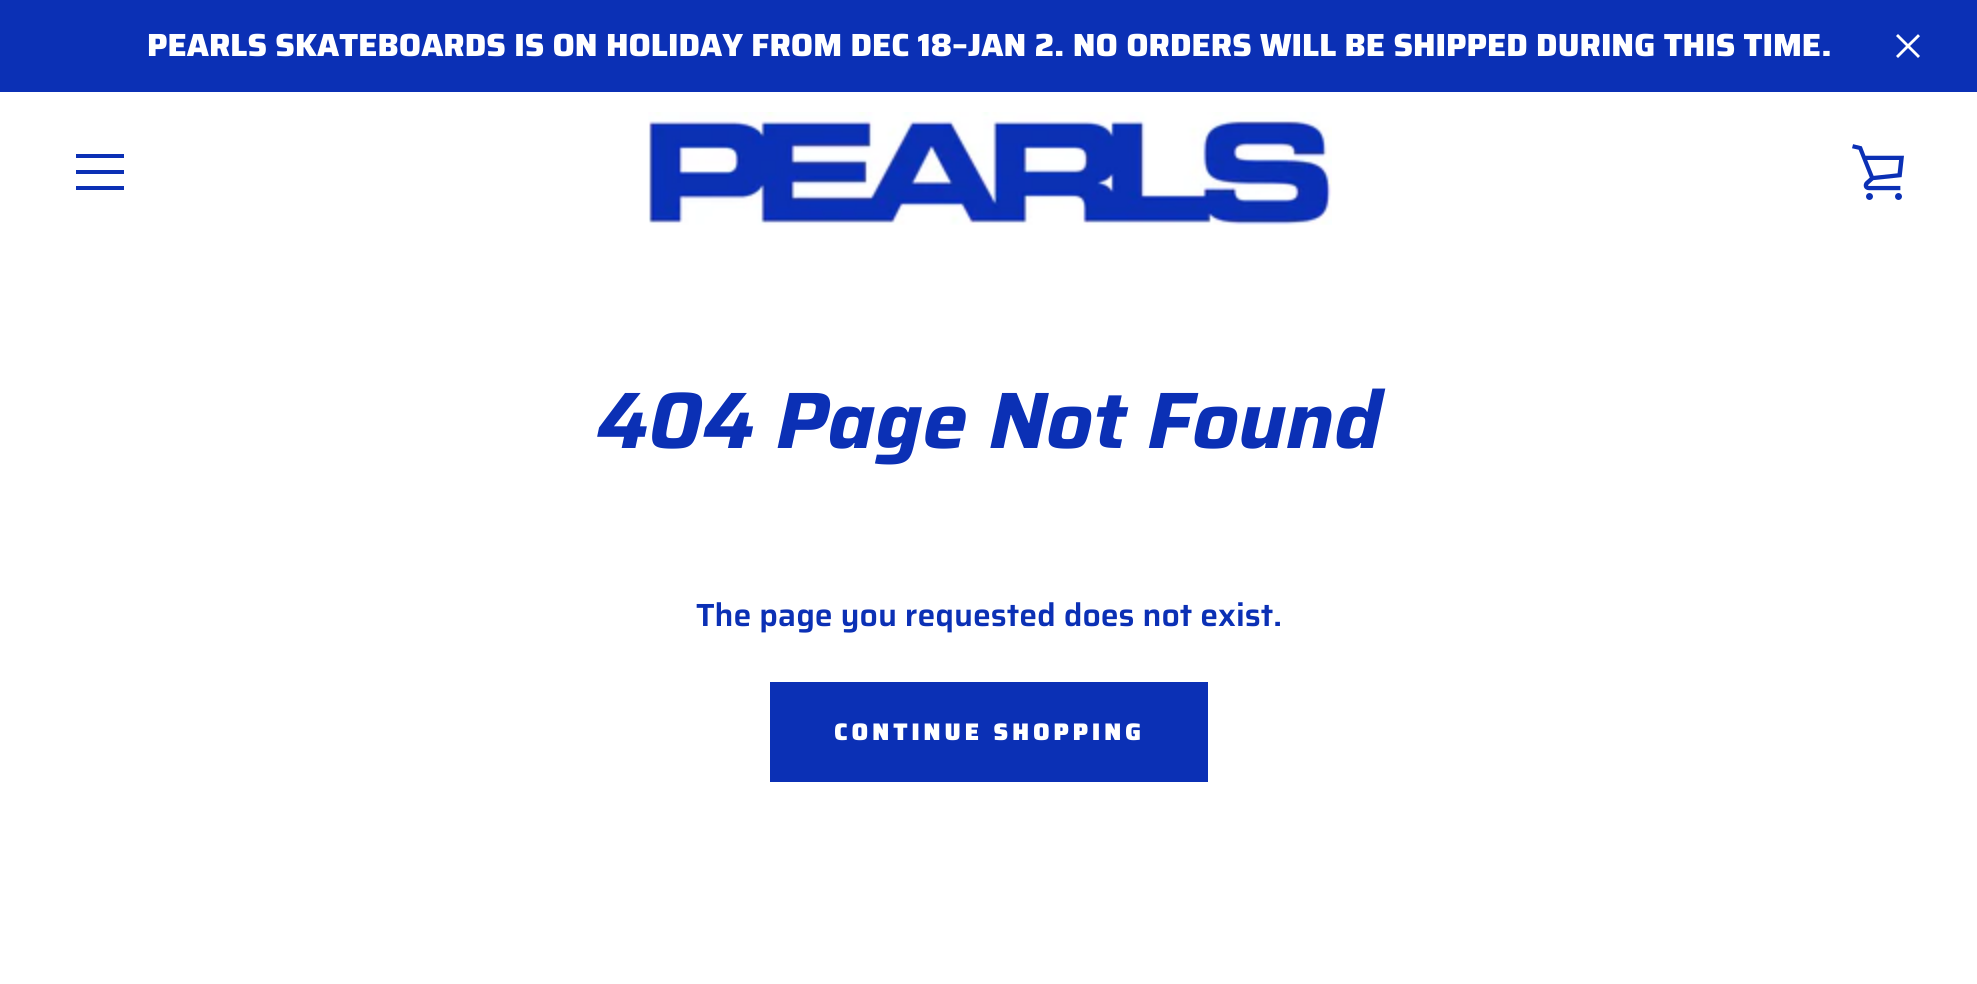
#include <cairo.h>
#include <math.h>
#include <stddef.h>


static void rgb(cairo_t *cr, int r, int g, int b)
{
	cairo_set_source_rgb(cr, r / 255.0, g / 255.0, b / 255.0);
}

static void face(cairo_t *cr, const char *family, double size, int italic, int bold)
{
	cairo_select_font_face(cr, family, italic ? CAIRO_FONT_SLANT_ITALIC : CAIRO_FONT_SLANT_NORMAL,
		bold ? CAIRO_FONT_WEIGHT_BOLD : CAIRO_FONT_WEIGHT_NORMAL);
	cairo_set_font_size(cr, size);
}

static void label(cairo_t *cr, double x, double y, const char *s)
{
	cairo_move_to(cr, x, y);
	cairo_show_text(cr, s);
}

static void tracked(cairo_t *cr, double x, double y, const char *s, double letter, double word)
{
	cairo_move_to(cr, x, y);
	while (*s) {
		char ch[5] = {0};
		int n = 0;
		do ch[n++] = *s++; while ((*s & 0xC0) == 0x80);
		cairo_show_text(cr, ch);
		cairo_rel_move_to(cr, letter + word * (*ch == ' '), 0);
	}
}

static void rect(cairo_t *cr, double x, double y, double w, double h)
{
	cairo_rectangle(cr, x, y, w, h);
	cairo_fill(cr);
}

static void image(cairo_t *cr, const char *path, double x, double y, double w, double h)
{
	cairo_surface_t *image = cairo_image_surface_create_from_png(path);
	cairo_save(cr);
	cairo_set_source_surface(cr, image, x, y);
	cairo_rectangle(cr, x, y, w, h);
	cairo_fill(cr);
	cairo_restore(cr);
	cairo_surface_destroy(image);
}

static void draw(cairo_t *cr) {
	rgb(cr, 255, 255, 255);
	cairo_paint(cr);
	rgb(cr, 11, 48, 181);
	rect(cr, 0, 0, 1977, 92);
	face(cr, "Saira ExtraBold", 32, 0, 0);
	rgb(cr, 255, 255, 255);
	label(cr, 147, 56, "PEARLS SKATEBOARDS IS ON HOLIDAY FROM DEC 18–JAN 2. NO ORDERS WILL BE SHIPPED DURING THIS TIME.");
	image(cr, "image0.png", 1896, 34, 24, 24);
	rgb(cr, 11, 48, 181);
	rect(cr, 76, 154, 48, 4);
	rect(cr, 76, 170, 48, 4);
	rect(cr, 76, 186, 48, 4);
	image(cr, "image1.png", 648, 112, 684, 113);
	image(cr, "image2.png", 1852, 144, 52, 56);
	face(cr, "Saira", 80, 1, 1);
	label(cr, 596, 448, "404 Page Not Found");
	face(cr, "Saira SemiBold", 32, 0, 0);
	label(cr, 696, 626, "The page you requested does not exist.");
	rect(cr, 770, 682, 438, 100);
	face(cr, "Saira Black", 24, 0, 0);
	rgb(cr, 255, 255, 255);
	tracked(cr, 834, 740, "CONTINUE SHOPPING", 4, 0);
}

int main(void) {
	cairo_surface_t *surface = cairo_image_surface_create(CAIRO_FORMAT_RGB24, 1977, 984);
	cairo_t *cr = cairo_create(surface);
	cairo_font_options_t *options = cairo_font_options_create();
	cairo_font_options_set_hint_metrics(options, CAIRO_HINT_METRICS_OFF);
	cairo_font_options_set_hint_style(options, CAIRO_HINT_STYLE_NONE);
	cairo_set_font_options(cr, options);
	cairo_set_miter_limit(cr, 4);
	draw(cr);
	cairo_surface_write_to_png(surface, "render.png");
	cairo_font_options_destroy(options);
	cairo_destroy(cr);
	cairo_surface_destroy(surface);
	return 0;
}
